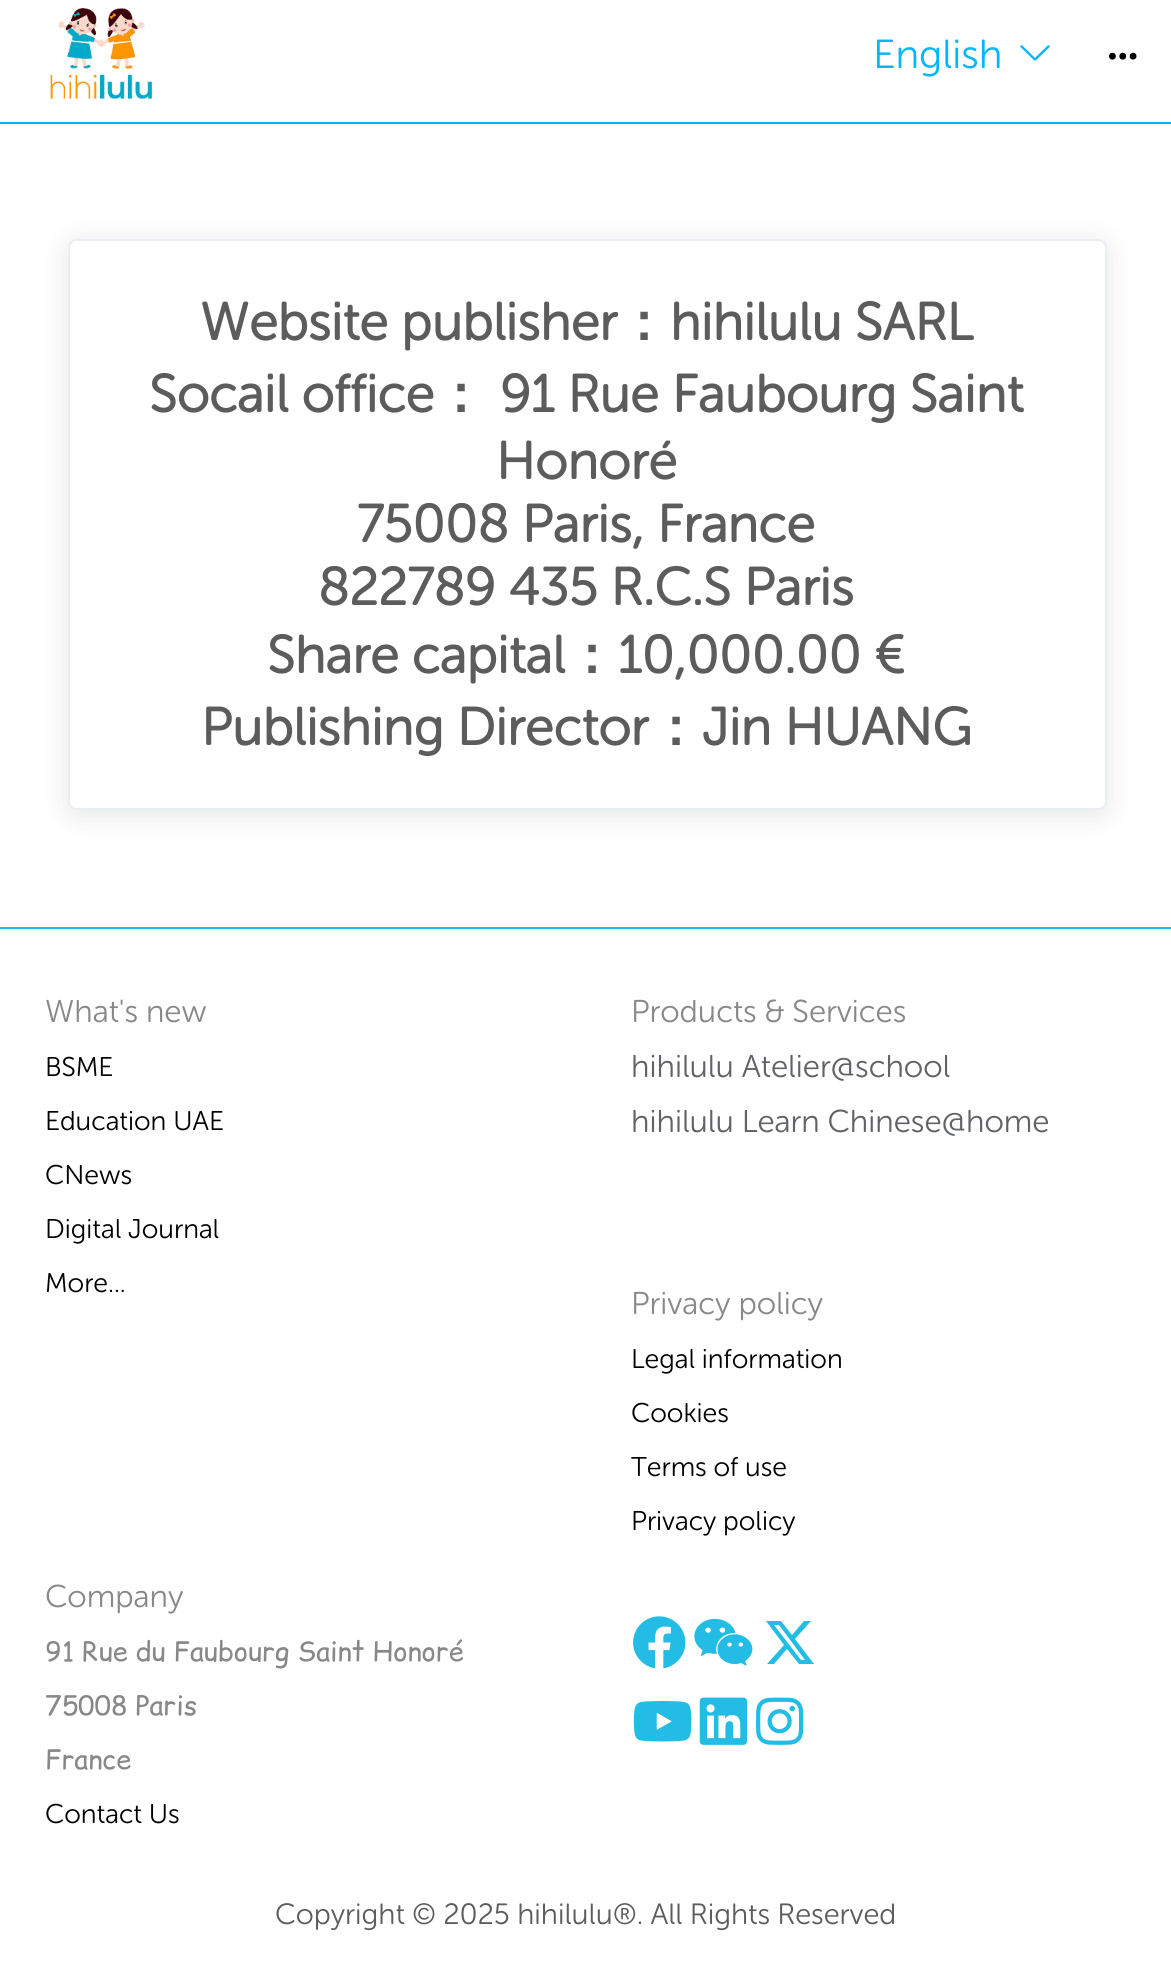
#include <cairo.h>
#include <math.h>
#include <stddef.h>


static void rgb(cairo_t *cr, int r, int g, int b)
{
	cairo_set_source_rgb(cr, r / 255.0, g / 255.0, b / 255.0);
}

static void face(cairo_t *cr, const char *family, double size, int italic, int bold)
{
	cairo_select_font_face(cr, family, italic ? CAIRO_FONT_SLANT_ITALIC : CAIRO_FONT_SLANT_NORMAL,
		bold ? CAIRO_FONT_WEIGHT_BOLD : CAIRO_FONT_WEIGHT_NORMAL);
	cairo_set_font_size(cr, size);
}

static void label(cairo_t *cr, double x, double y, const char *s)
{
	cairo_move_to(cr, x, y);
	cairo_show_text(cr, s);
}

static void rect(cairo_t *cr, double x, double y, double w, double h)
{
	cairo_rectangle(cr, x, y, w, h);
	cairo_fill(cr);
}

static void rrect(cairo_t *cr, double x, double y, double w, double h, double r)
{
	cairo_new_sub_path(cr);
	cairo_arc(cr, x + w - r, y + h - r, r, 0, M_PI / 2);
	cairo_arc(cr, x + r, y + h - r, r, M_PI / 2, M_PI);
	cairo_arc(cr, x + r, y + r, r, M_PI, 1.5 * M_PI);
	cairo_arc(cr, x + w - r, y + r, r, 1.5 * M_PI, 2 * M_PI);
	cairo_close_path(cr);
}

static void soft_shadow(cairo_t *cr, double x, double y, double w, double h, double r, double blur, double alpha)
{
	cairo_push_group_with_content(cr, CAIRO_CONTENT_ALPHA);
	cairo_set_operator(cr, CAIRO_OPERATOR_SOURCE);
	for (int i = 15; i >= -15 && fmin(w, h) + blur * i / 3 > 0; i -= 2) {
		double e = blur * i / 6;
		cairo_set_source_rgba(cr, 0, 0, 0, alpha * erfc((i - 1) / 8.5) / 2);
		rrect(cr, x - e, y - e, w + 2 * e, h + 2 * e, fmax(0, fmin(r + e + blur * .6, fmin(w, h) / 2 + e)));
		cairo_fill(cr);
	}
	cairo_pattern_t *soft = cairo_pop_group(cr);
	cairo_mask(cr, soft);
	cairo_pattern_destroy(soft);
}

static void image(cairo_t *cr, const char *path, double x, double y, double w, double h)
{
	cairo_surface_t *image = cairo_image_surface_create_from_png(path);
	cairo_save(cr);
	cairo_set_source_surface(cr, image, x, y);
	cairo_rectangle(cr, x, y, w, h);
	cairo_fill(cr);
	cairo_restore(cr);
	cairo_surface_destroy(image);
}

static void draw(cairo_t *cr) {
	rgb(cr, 255, 255, 255);
	cairo_paint(cr);
	rgb(cr, 1, 183, 252);
	rect(cr, 0, 122, 1171, 2);
	image(cr, "image0.png", 50, 8, 102, 91);
	face(cr, "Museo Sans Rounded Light", 40.5, 0, 0);
	label(cr, 873, 68, "English");
	image(cr, "image1.png", 1020, 45, 30, 16);
	image(cr, "image2.png", 1109, 52, 28, 8);
	rgb(cr, 0, 0, 0);
	soft_shadow(cr, 68, 243, 1039, 572, 9, 13.5, 0.1);
	rgb(cr, 255, 255, 255);
	rrect(cr, 69, 240, 1037, 569, 8);
	cairo_fill_preserve(cr);
	rgb(cr, 235, 238, 245);
	cairo_stroke(cr);
	face(cr, "Museo Sans Rounded", 52.6, 0, 1);
	rgb(cr, 93, 92, 92);
	label(cr, 200, 340, "Website publisher");
	face(cr, "WenQuanYi Zen Hei", 52.6, 0, 1);
	label(cr, 617, 340, "：");
	face(cr, "Museo Sans Rounded", 52.6, 0, 1);
	label(cr, 670, 340, "hihilulu SARL");
	label(cr, 149, 412, "Socail office");
	face(cr, "WenQuanYi Zen Hei", 52.6, 0, 1);
	label(cr, 434, 412, "：");
	face(cr, "Museo Sans Rounded", 52.6, 0, 1);
	label(cr, 500, 412, "91 Rue Faubourg Saint");
	label(cr, 496, 479, "Honoré");
	label(cr, 357, 542, "75008 Paris, France");
	label(cr, 318, 605, "822789 435 R.C.S Paris");
	label(cr, 267, 673, "Share capital");
	face(cr, "WenQuanYi Zen Hei", 52.6, 0, 1);
	label(cr, 565, 673, "：");
	face(cr, "Museo Sans Rounded", 52.6, 0, 1);
	label(cr, 618, 673, "10,000.00 €");
	label(cr, 201, 745, "Publishing Director");
	face(cr, "WenQuanYi Zen Hei", 52.6, 0, 1);
	label(cr, 649, 745, "：");
	face(cr, "Museo Sans Rounded", 52.6, 0, 1);
	label(cr, 702, 745, "Jin HUANG");
	rgb(cr, 35, 188, 229);
	rect(cr, 0, 927, 1171, 2);
	face(cr, "Museo Sans Rounded Light", 31.5, 0, 0);
	rgb(cr, 136, 136, 136);
	label(cr, 45, 1022, "What's new");
	face(cr, "Museo Sans Rounded Light", 27, 0, 0);
	rgb(cr, 0, 0, 0);
	label(cr, 45, 1076, "BSME");
	label(cr, 45, 1130, "Education UAE");
	label(cr, 45, 1184, "CNews");
	label(cr, 45, 1238, "Digital Journal");
	label(cr, 45, 1292, "More...");
	face(cr, "Museo Sans Rounded Light", 31.5, 0, 0);
	rgb(cr, 136, 136, 136);
	label(cr, 631, 1022, "Products & Services");
	rgb(cr, 96, 98, 102);
	label(cr, 631, 1077, "hihilulu Atelier@school");
	label(cr, 631, 1132, "hihilulu Learn Chinese@home");
	rgb(cr, 136, 136, 136);
	label(cr, 631, 1314, "Privacy policy");
	face(cr, "Museo Sans Rounded Light", 27, 0, 0);
	rgb(cr, 0, 0, 0);
	label(cr, 631, 1368, "Legal information");
	label(cr, 631, 1422, "Cookies");
	label(cr, 631, 1476, "Terms of use");
	label(cr, 631, 1530, "Privacy policy");
	face(cr, "Museo Sans Rounded Light", 31.5, 0, 0);
	rgb(cr, 136, 136, 136);
	label(cr, 45, 1607, "Company");
	face(cr, "Comic Relief", 27, 0, 0);
	label(cr, 45, 1661, "91 Rue du Faubourg Saint Honoré");
	label(cr, 45, 1715, "75008 Paris");
	label(cr, 45, 1769, "France");
	face(cr, "Museo Sans Rounded Light", 27, 0, 0);
	rgb(cr, 0, 0, 0);
	label(cr, 45, 1823, "Contact Us");
	image(cr, "image3.png", 633, 1616, 53, 53);
	image(cr, "image4.png", 694, 1618, 59, 48);
	rgb(cr, 35, 188, 229);
	cairo_new_path(cr);
	cairo_move_to(cr, 804, 1621);
	cairo_line_to(cr, 811, 1621);
	cairo_line_to(cr, 795, 1639);
	cairo_line_to(cr, 814, 1664);
	cairo_line_to(cr, 799, 1664);
	cairo_line_to(cr, 787, 1649);
	cairo_line_to(cr, 774, 1664);
	cairo_line_to(cr, 767, 1664);
	cairo_line_to(cr, 784, 1645);
	cairo_line_to(cr, 766, 1621);
	cairo_line_to(cr, 781, 1621);
	cairo_line_to(cr, 792, 1635);
	cairo_close_path(cr);
	cairo_move_to(cr, 801, 1660);
	cairo_line_to(cr, 805, 1660);
	cairo_line_to(cr, 779, 1625);
	cairo_line_to(cr, 774, 1625);
	cairo_close_path(cr);
	cairo_fill(cr);
	image(cr, "image5.png", 633, 1701, 59, 41);
	image(cr, "image6.png", 699, 1697, 48, 48);
	image(cr, "image7.png", 756, 1697, 48, 48);
	face(cr, "Museo Sans Rounded Light", 29.25, 0, 0);
	rgb(cr, 93, 92, 92);
	label(cr, 275, 1924, "Copyright © 2025 hihilulu®. All Rights Reserved");
}

int main(void) {
	cairo_surface_t *surface = cairo_image_surface_create(CAIRO_FORMAT_RGB24, 1171, 1972);
	cairo_t *cr = cairo_create(surface);
	cairo_font_options_t *options = cairo_font_options_create();
	cairo_font_options_set_hint_metrics(options, CAIRO_HINT_METRICS_OFF);
	cairo_font_options_set_hint_style(options, CAIRO_HINT_STYLE_NONE);
	cairo_set_font_options(cr, options);
	cairo_set_miter_limit(cr, 4);
	draw(cr);
	cairo_surface_write_to_png(surface, "render.png");
	cairo_font_options_destroy(options);
	cairo_destroy(cr);
	cairo_surface_destroy(surface);
	return 0;
}
